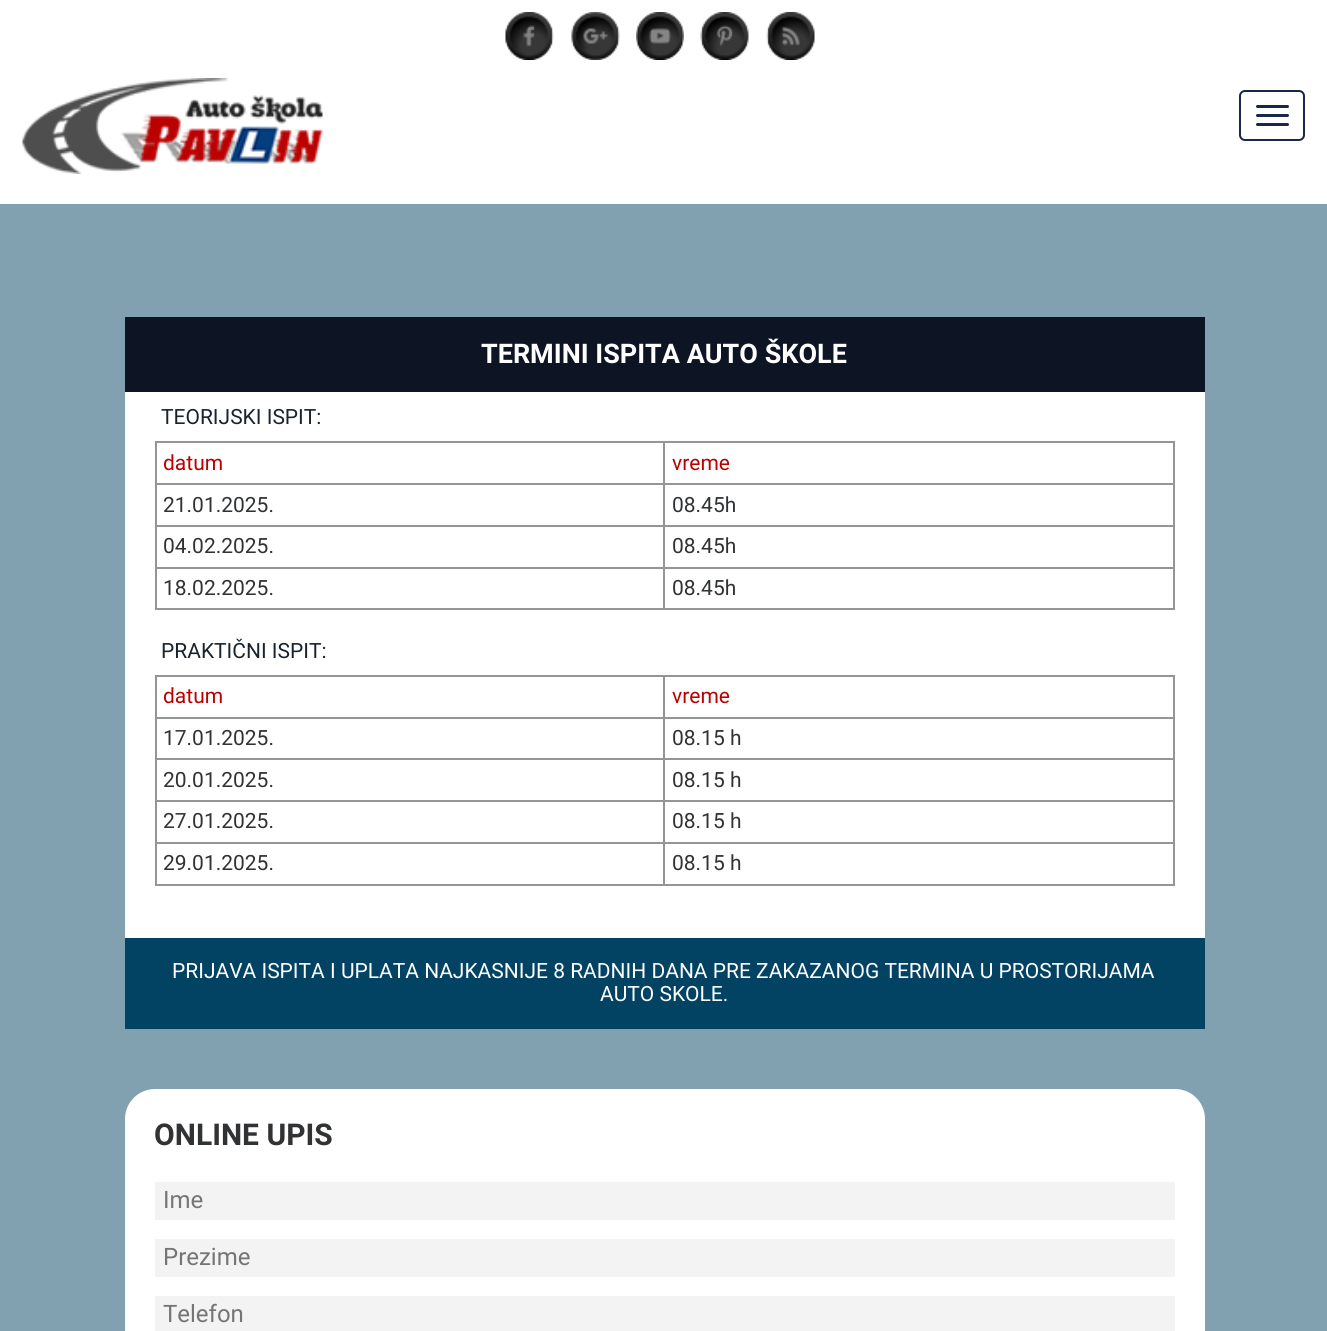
#include <cairo.h>
#include <math.h>
#include <stddef.h>


static void rgb(cairo_t *cr, int r, int g, int b)
{
	cairo_set_source_rgb(cr, r / 255.0, g / 255.0, b / 255.0);
}

static void face(cairo_t *cr, const char *family, double size, int italic, int bold)
{
	cairo_select_font_face(cr, family, italic ? CAIRO_FONT_SLANT_ITALIC : CAIRO_FONT_SLANT_NORMAL,
		bold ? CAIRO_FONT_WEIGHT_BOLD : CAIRO_FONT_WEIGHT_NORMAL);
	cairo_set_font_size(cr, size);
}

static void label(cairo_t *cr, double x, double y, const char *s)
{
	cairo_move_to(cr, x, y);
	cairo_show_text(cr, s);
}

static void rect(cairo_t *cr, double x, double y, double w, double h)
{
	cairo_rectangle(cr, x, y, w, h);
	cairo_fill(cr);
}

static void rrect(cairo_t *cr, double x, double y, double w, double h, double r)
{
	cairo_new_sub_path(cr);
	cairo_arc(cr, x + w - r, y + h - r, r, 0, M_PI / 2);
	cairo_arc(cr, x + r, y + h - r, r, M_PI / 2, M_PI);
	cairo_arc(cr, x + r, y + r, r, M_PI, 1.5 * M_PI);
	cairo_arc(cr, x + w - r, y + r, r, 1.5 * M_PI, 2 * M_PI);
	cairo_close_path(cr);
}

static void image(cairo_t *cr, const char *path, double x, double y, double w, double h)
{
	cairo_surface_t *image = cairo_image_surface_create_from_png(path);
	cairo_save(cr);
	cairo_set_source_surface(cr, image, x, y);
	cairo_rectangle(cr, x, y, w, h);
	cairo_fill(cr);
	cairo_restore(cr);
	cairo_surface_destroy(image);
}

static void draw(cairo_t *cr) {
	rgb(cr, 255, 255, 255);
	cairo_paint(cr);
	image(cr, "image0.png", 505, 12, 49, 48);
	image(cr, "image1.png", 571, 12, 49, 48);
	image(cr, "image2.png", 636, 12, 48, 48);
	image(cr, "image3.png", 700, 12, 49, 48);
	image(cr, "image4.png", 766, 12, 49, 48);
	image(cr, "image5.png", 22, 78, 301, 96);
	rrect(cr, 1240, 91, 64, 49, 5);
	rgb(cr, 25, 39, 72);
	cairo_stroke(cr);
	rrect(cr, 1256, 105, 33, 3, 1.5);
	cairo_fill(cr);
	rrect(cr, 1256, 114, 33, 3, 1.5);
	cairo_fill(cr);
	rrect(cr, 1256, 123, 33, 3, 1.5);
	cairo_fill(cr);
	rgb(cr, 129, 161, 176);
	rect(cr, 0, 204, 1327, 1127);
	rgb(cr, 13, 21, 37);
	rect(cr, 125, 317, 1080, 75);
	face(cr, "Roboto", 27, 0, 1);
	rgb(cr, 255, 255, 255);
	label(cr, 481, 363, "TERMINI ISPITA AUTO ŠKOLE");
	rect(cr, 125, 392, 1080, 546);
	face(cr, "Roboto", 21, 0, 0);
	rgb(cr, 25, 35, 45);
	label(cr, 161, 424, "TEORIJSKI ISPIT:");
	rgb(cr, 149, 149, 149);
	rect(cr, 155, 608, 1020, 2);
	rect(cr, 155, 441, 2, 168);
	rect(cr, 156, 441, 1019, 2);
	rect(cr, 663, 443, 2, 40);
	rgb(cr, 186, 0, 0);
	label(cr, 163, 470, "datum");
	rgb(cr, 149, 149, 149);
	rect(cr, 1173, 443, 2, 40);
	rgb(cr, 186, 0, 0);
	label(cr, 672, 470, "vreme");
	rgb(cr, 149, 149, 149);
	rect(cr, 156, 483, 1019, 2);
	rect(cr, 663, 485, 2, 40);
	rgb(cr, 48, 50, 52);
	label(cr, 163, 512, "21.01.2025.");
	rgb(cr, 149, 149, 149);
	rect(cr, 1173, 485, 2, 40);
	rgb(cr, 48, 50, 52);
	label(cr, 672, 512, "08.45h");
	rgb(cr, 149, 149, 149);
	rect(cr, 156, 525, 1019, 2);
	rect(cr, 663, 527, 2, 40);
	rgb(cr, 48, 50, 52);
	label(cr, 163, 553, "04.02.2025.");
	rgb(cr, 149, 149, 149);
	rect(cr, 1173, 527, 2, 40);
	rgb(cr, 48, 50, 52);
	label(cr, 672, 553, "08.45h");
	rgb(cr, 149, 149, 149);
	rect(cr, 156, 567, 1019, 2);
	rect(cr, 663, 569, 2, 39);
	rgb(cr, 48, 50, 52);
	label(cr, 163, 595, "18.02.2025.");
	rgb(cr, 149, 149, 149);
	rect(cr, 1173, 569, 2, 39);
	rgb(cr, 48, 50, 52);
	label(cr, 672, 595, "08.45h");
	rgb(cr, 25, 35, 45);
	label(cr, 161, 658, "PRAKTIČNI ISPIT:");
	rgb(cr, 149, 149, 149);
	rect(cr, 155, 884, 1020, 2);
	rect(cr, 155, 675, 2, 210);
	rect(cr, 156, 675, 1019, 2);
	rect(cr, 663, 677, 2, 40);
	rgb(cr, 186, 0, 0);
	label(cr, 163, 703, "datum");
	rgb(cr, 149, 149, 149);
	rect(cr, 1173, 677, 2, 40);
	rgb(cr, 186, 0, 0);
	label(cr, 672, 703, "vreme");
	rgb(cr, 149, 149, 149);
	rect(cr, 156, 717, 1019, 2);
	rect(cr, 663, 719, 2, 39);
	rgb(cr, 48, 50, 52);
	label(cr, 163, 745, "17.01.2025.");
	rgb(cr, 149, 149, 149);
	rect(cr, 1173, 719, 2, 39);
	rgb(cr, 48, 50, 52);
	label(cr, 672, 745, "08.15 h");
	rgb(cr, 149, 149, 149);
	rect(cr, 156, 758, 1019, 2);
	rect(cr, 663, 759, 2, 41);
	rgb(cr, 48, 50, 52);
	label(cr, 163, 787, "20.01.2025.");
	rgb(cr, 149, 149, 149);
	rect(cr, 1173, 759, 2, 41);
	rgb(cr, 48, 50, 52);
	label(cr, 672, 787, "08.15 h");
	rgb(cr, 149, 149, 149);
	rect(cr, 156, 800, 1019, 2);
	rect(cr, 663, 801, 2, 41);
	rgb(cr, 48, 50, 52);
	label(cr, 163, 828, "27.01.2025.");
	rgb(cr, 149, 149, 149);
	rect(cr, 1173, 801, 2, 41);
	rgb(cr, 48, 50, 52);
	label(cr, 672, 828, "08.15 h");
	rgb(cr, 149, 149, 149);
	rect(cr, 156, 842, 1019, 2);
	rect(cr, 663, 843, 2, 41);
	rgb(cr, 48, 50, 52);
	label(cr, 163, 870, "29.01.2025.");
	rgb(cr, 149, 149, 149);
	rect(cr, 1173, 843, 2, 41);
	rgb(cr, 48, 50, 52);
	label(cr, 672, 870, "08.15 h");
	rgb(cr, 2, 67, 100);
	rect(cr, 125, 938, 1080, 91);
	rgb(cr, 255, 255, 255);
	label(cr, 172, 978, "PRIJAVA ISPITA I UPLATA NAJKASNIJE 8 RADNIH DANA PRE ZAKAZANOG TERMINA U PROSTORIJAMA");
	label(cr, 600, 1001, "AUTO SKOLE.");
	rrect(cr, 125, 1089, 1080, 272, 30);
	cairo_fill(cr);
	face(cr, "Roboto", 30, 0, 1);
	rgb(cr, 48, 50, 52);
	label(cr, 154, 1145, "ONLINE UPIS");
	rgb(cr, 243, 243, 243);
	rect(cr, 155, 1182, 1020, 38);
	face(cr, "Roboto", 24, 0, 0);
	rgb(cr, 117, 117, 117);
	label(cr, 163, 1208, "Ime");
	rgb(cr, 243, 243, 243);
	rect(cr, 155, 1239, 1020, 38);
	rgb(cr, 117, 117, 117);
	label(cr, 163, 1265, "Prezime");
	rgb(cr, 243, 243, 243);
	rect(cr, 155, 1296, 1020, 35);
	rgb(cr, 117, 117, 117);
	label(cr, 163, 1322, "Telefon");
}

int main(void) {
	cairo_surface_t *surface = cairo_image_surface_create(CAIRO_FORMAT_RGB24, 1327, 1331);
	cairo_t *cr = cairo_create(surface);
	cairo_font_options_t *options = cairo_font_options_create();
	cairo_font_options_set_hint_metrics(options, CAIRO_HINT_METRICS_OFF);
	cairo_font_options_set_hint_style(options, CAIRO_HINT_STYLE_NONE);
	cairo_set_font_options(cr, options);
	cairo_set_miter_limit(cr, 4);
	draw(cr);
	cairo_surface_write_to_png(surface, "render.png");
	cairo_font_options_destroy(options);
	cairo_destroy(cr);
	cairo_surface_destroy(surface);
	return 0;
}
